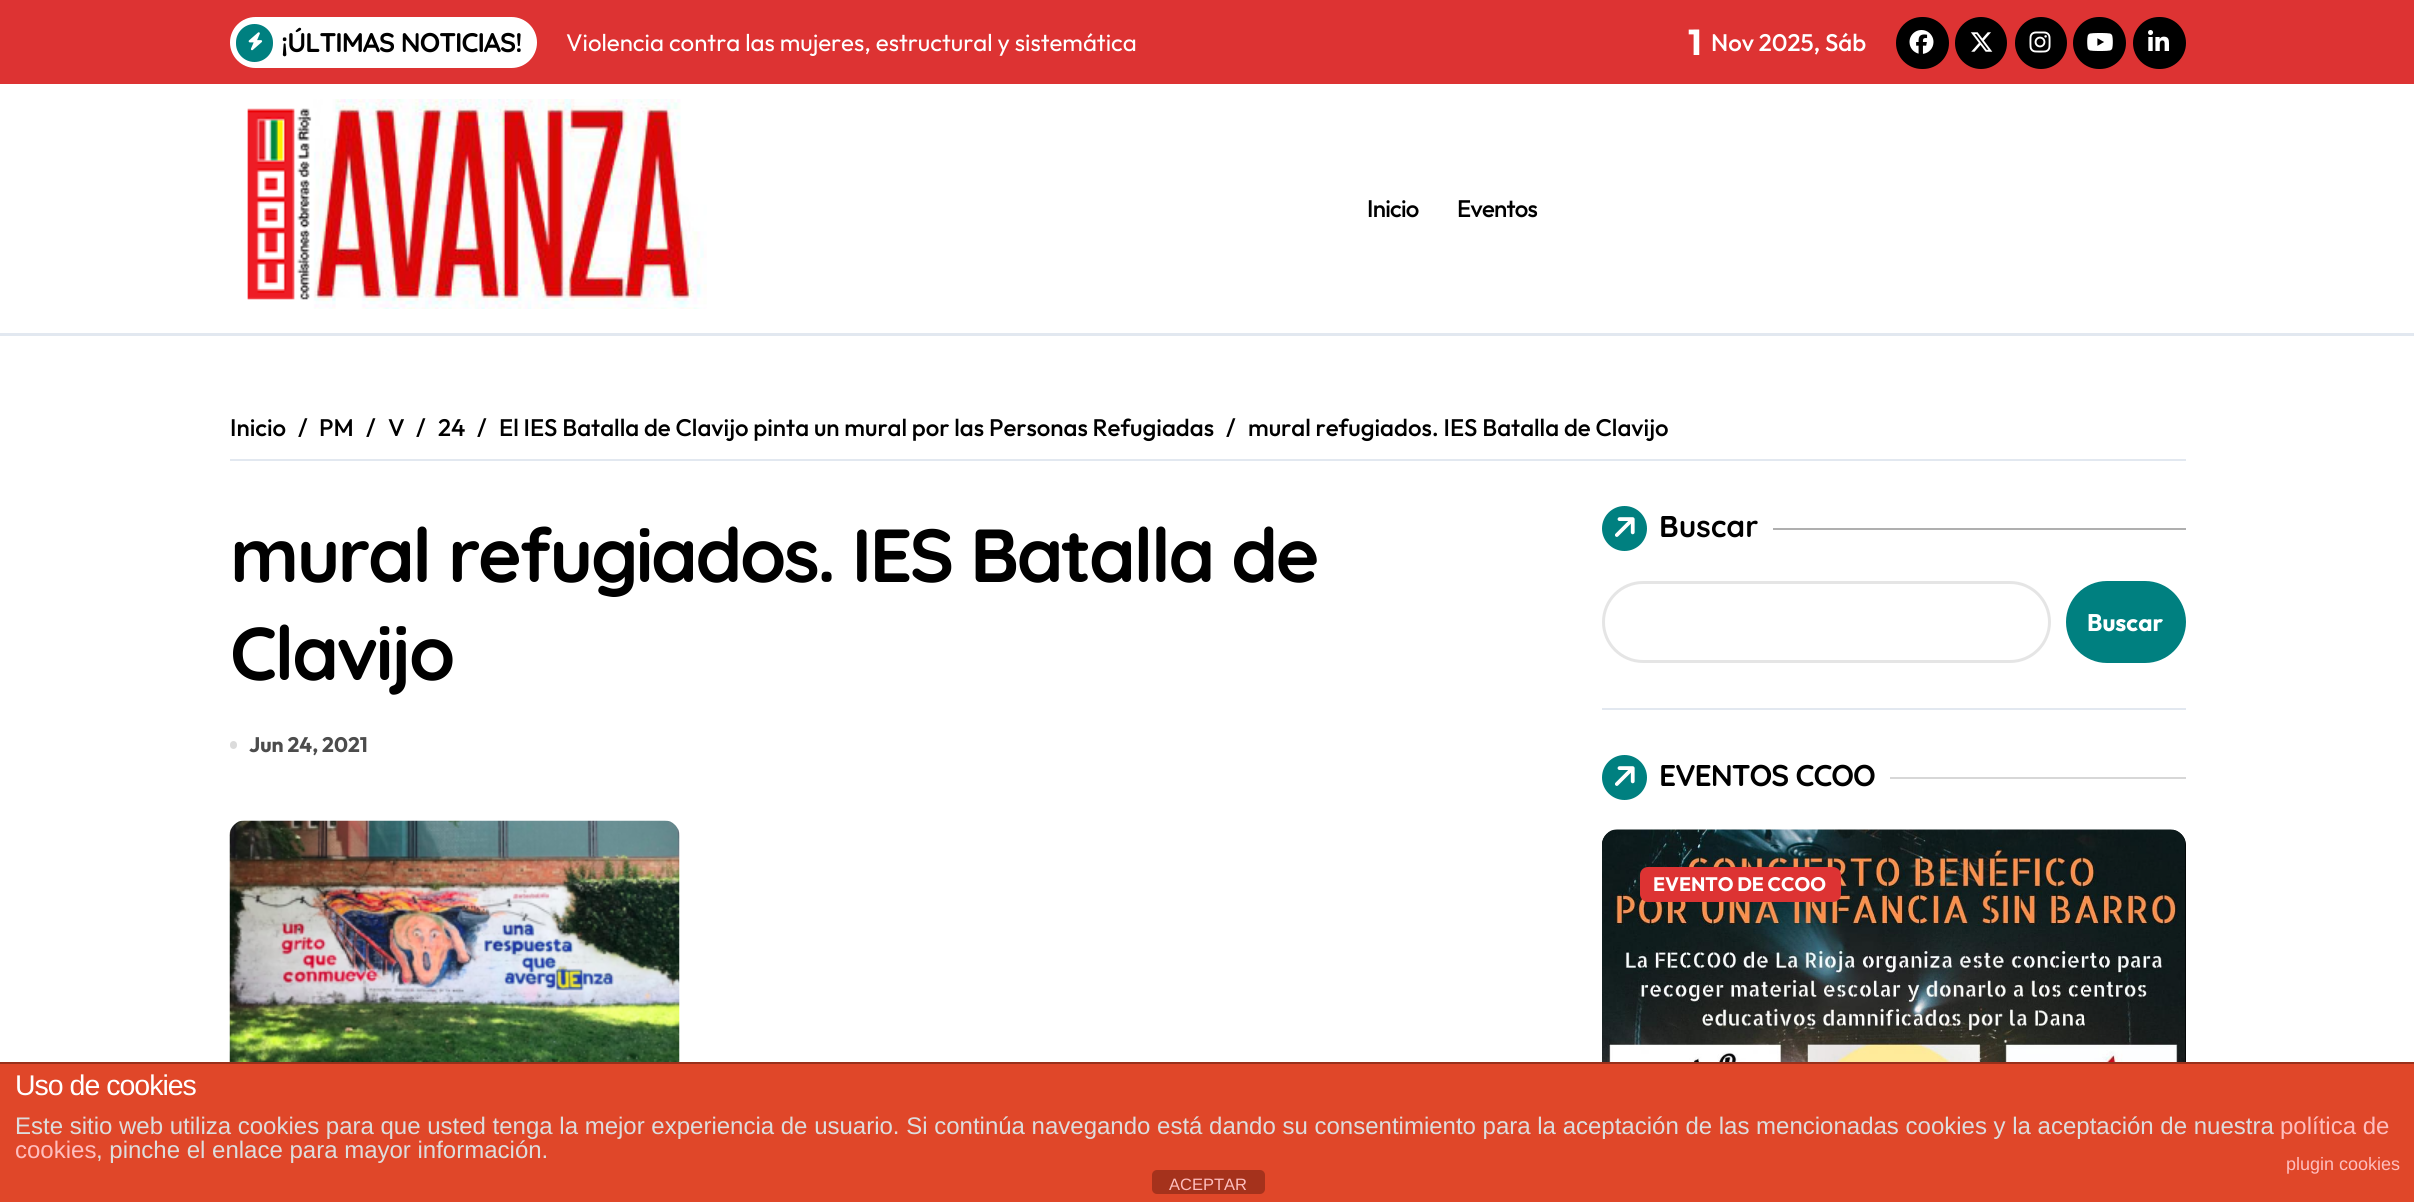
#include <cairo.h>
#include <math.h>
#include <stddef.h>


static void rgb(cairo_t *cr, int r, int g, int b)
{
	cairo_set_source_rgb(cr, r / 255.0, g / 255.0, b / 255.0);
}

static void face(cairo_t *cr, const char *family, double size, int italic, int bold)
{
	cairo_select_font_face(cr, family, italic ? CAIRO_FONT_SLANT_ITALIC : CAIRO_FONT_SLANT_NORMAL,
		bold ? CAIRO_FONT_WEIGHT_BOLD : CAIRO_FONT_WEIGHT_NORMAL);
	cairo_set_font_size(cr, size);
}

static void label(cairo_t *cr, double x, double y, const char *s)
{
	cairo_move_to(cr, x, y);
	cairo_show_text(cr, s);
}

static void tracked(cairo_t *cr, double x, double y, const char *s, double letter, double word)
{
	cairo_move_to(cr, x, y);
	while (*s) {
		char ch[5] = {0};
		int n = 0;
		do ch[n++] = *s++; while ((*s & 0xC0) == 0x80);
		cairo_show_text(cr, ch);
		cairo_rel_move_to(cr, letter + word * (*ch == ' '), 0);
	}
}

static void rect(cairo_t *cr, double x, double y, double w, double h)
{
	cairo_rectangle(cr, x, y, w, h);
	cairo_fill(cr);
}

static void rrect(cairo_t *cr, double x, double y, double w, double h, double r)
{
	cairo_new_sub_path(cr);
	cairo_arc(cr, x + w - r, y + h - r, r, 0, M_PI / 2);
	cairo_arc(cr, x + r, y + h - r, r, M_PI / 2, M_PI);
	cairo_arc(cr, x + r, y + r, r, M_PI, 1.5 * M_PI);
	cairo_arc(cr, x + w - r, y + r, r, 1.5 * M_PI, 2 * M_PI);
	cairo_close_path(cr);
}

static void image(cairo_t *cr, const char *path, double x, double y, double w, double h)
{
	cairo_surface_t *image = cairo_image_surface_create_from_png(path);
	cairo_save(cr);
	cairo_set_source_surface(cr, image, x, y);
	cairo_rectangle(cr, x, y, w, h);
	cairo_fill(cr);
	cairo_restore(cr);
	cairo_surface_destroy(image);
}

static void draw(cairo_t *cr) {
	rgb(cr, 255, 255, 255);
	cairo_paint(cr);
	rgb(cr, 226, 232, 240);
	rect(cr, 0, 333, 2414, 3);
	rgb(cr, 221, 51, 51);
	rect(cr, 0, 0, 2414, 84);
	rgb(cr, 255, 255, 255);
	rrect(cr, 230, 17, 307, 51, 25.5);
	cairo_fill(cr);
	rgb(cr, 0, 128, 128);
	rrect(cr, 236, 24, 37, 38, 18.5);
	cairo_fill(cr);
	image(cr, "image0.png", 248, 32, 15, 19);
	face(cr, "Quicksand", 27, 0, 1);
	rgb(cr, 0, 0, 0);
	tracked(cr, 281, 52, "¡ÚLTIMAS NOTICIAS!", -1, 0);
	face(cr, "Outfit", 24, 0, 0);
	rgb(cr, 255, 255, 255);
	label(cr, 566, 51, "Violencia contra las mujeres, estructural y sistemática");
	face(cr, "Outfit", 36, 0, 1);
	label(cr, 1688, 55, "1");
	face(cr, "Outfit Medium", 24, 0, 0);
	label(cr, 1711, 51, "Nov 2025, Sáb");
	rgb(cr, 0, 0, 0);
	rrect(cr, 1896, 17, 53, 52, 26);
	cairo_fill(cr);
	image(cr, "image1.png", 1909, 30, 25, 24);
	cairo_arc(cr, 1981, 43, 26, 0, 2 * M_PI);
	cairo_fill(cr);
	image(cr, "image2.png", 1970, 32, 23, 20);
	cairo_arc(cr, 2041, 43, 26, 0, 2 * M_PI);
	cairo_fill(cr);
	image(cr, "image3.png", 2029, 31, 22, 22);
	rrect(cr, 2073, 17, 53, 52, 26);
	cairo_fill(cr);
	image(cr, "image4.png", 2087, 33, 26, 18);
	rrect(cr, 2133, 17, 53, 52, 26);
	cairo_fill(cr);
	image(cr, "image5.png", 2148, 30, 21, 21);
	image(cr, "image6.png", 247, 99, 460, 210);
	tracked(cr, 1367, 217, "Inicio", -0.75, 0);
	tracked(cr, 1457, 217, "Eventos", -0.75, 0);
	rgb(cr, 226, 232, 240);
	rect(cr, 230, 459, 1956, 2);
	rgb(cr, 0, 0, 0);
	label(cr, 230, 436, "Inicio");
	label(cr, 298, 436, "/");
	label(cr, 319, 436, "PM");
	label(cr, 366, 436, "/");
	label(cr, 388, 436, "V");
	label(cr, 416, 436, "/");
	label(cr, 438, 436, "24");
	label(cr, 477, 436, "/");
	label(cr, 499, 436, "El IES Batalla de Clavijo pinta un mural por las Personas Refugiadas");
	label(cr, 1226, 436, "/");
	label(cr, 1248, 436, "mural refugiados. IES Batalla de Clavijo");
	face(cr, "Quicksand", 75, 0, 1);
	tracked(cr, 230, 582, "mural refugiados. IES Batalla de", -2.7, 0);
	tracked(cr, 230, 680, "Clavijo", -2.7, 0);
	rgb(cr, 219, 219, 219);
	rrect(cr, 230, 741, 7, 8, 3.5);
	cairo_fill(cr);
	face(cr, "Outfit", 21, 0, 1);
	rgb(cr, 76, 76, 76);
	label(cr, 249, 752, "Jun 24, 2021");
	image(cr, "image7.png", 229, 820, 451, 242);
	rgb(cr, 226, 232, 240);
	rect(cr, 1602, 708, 584, 2);
	rgb(cr, 0, 128, 128);
	cairo_arc(cr, 1624.5, 528.5, 22.5, 0, 2 * M_PI);
	cairo_fill(cr);
	image(cr, "image8.png", 1615, 517, 20, 20);
	face(cr, "Quicksand", 30, 0, 1);
	rgb(cr, 0, 0, 0);
	label(cr, 1659, 537, "Buscar");
	rgb(cr, 175, 175, 175);
	rect(cr, 1773, 528, 413, 2);
	rrect(cr, 1603.5, 582.5, 446, 79, 39.5);
	rgb(cr, 229, 229, 229);
	cairo_set_line_width(cr, 3);
	cairo_stroke(cr);
	rgb(cr, 0, 128, 128);
	rrect(cr, 2066, 581, 120, 82, 41);
	cairo_fill(cr);
	face(cr, "Outfit", 24, 0, 1);
	rgb(cr, 255, 255, 255);
	label(cr, 2087, 631, "Buscar");
	rgb(cr, 0, 128, 128);
	cairo_new_path(cr);
	cairo_arc(cr, 1624.5, 777.5, 22.5, 0, 2 * M_PI);
	cairo_fill(cr);
	image(cr, "image8.png", 1615, 766, 20, 20);
	face(cr, "Quicksand", 30, 0, 1);
	rgb(cr, 0, 0, 0);
	tracked(cr, 1659, 786, "EVENTOS CCOO", -1, 0);
	rgb(cr, 215, 215, 215);
	rect(cr, 1890, 777, 296, 2);
	rgb(cr, 0, 0, 0);
	rrect(cr, 1602, 830, 584, 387, 15);
	cairo_fill(cr);
	image(cr, "image9.png", 1602, 829, 584, 233);
	rgb(cr, 221, 51, 51);
	rrect(cr, 1641, 868, 199, 33, 7);
	cairo_fill_preserve(cr);
	cairo_set_line_width(cr, 2);
	cairo_stroke(cr);
	face(cr, "Outfit", 19.5, 0, 1);
	rgb(cr, 255, 255, 255);
	label(cr, 1653, 891, "EVENTO DE CCOO");
	rgb(cr, 224, 71, 41);
	rect(cr, 0, 1064, 2414, 138);
	rgb(cr, 153, 48, 27);
	rect(cr, 0, 1062, 2414, 2);
	face(cr, "Liberation Sans", 28.5, 0, 0);
	rgb(cr, 255, 255, 255);
	tracked(cr, 15, 1095, "Uso de cookies", -1, 0);
	face(cr, "Liberation Sans", 24, 0, 0);
	rgb(cr, 221, 221, 221);
	label(cr, 15, 1134, "Este sitio web utiliza cookies para que usted tenga la mejor experiencia de usuario. Si continúa navegando está dando su consentimiento para la aceptación de las mencionadas cookies y la aceptación de nuestra");
	rgb(cr, 254, 190, 190);
	label(cr, 2280, 1134, "política de");
	label(cr, 15, 1158, "cookies");
	rgb(cr, 221, 221, 221);
	label(cr, 96, 1158, ", pinche el enlace para mayor información.");
	face(cr, "Liberation Sans", 18, 0, 0);
	rgb(cr, 254, 190, 190);
	label(cr, 2286, 1170, "plugin cookies");
	rgb(cr, 165, 50, 28);
	rrect(cr, 1152, 1170, 113, 24, 5);
	cairo_fill(cr);
	face(cr, "Liberation Sans", 16.5, 0, 0);
	rgb(cr, 254, 190, 190);
	label(cr, 1169, 1190, "ACEPTAR");
}

int main(void) {
	cairo_surface_t *surface = cairo_image_surface_create(CAIRO_FORMAT_RGB24, 2414, 1202);
	cairo_t *cr = cairo_create(surface);
	cairo_font_options_t *options = cairo_font_options_create();
	cairo_font_options_set_hint_metrics(options, CAIRO_HINT_METRICS_OFF);
	cairo_font_options_set_hint_style(options, CAIRO_HINT_STYLE_NONE);
	cairo_set_font_options(cr, options);
	cairo_set_miter_limit(cr, 4);
	draw(cr);
	cairo_surface_write_to_png(surface, "render.png");
	cairo_font_options_destroy(options);
	cairo_destroy(cr);
	cairo_surface_destroy(surface);
	return 0;
}
